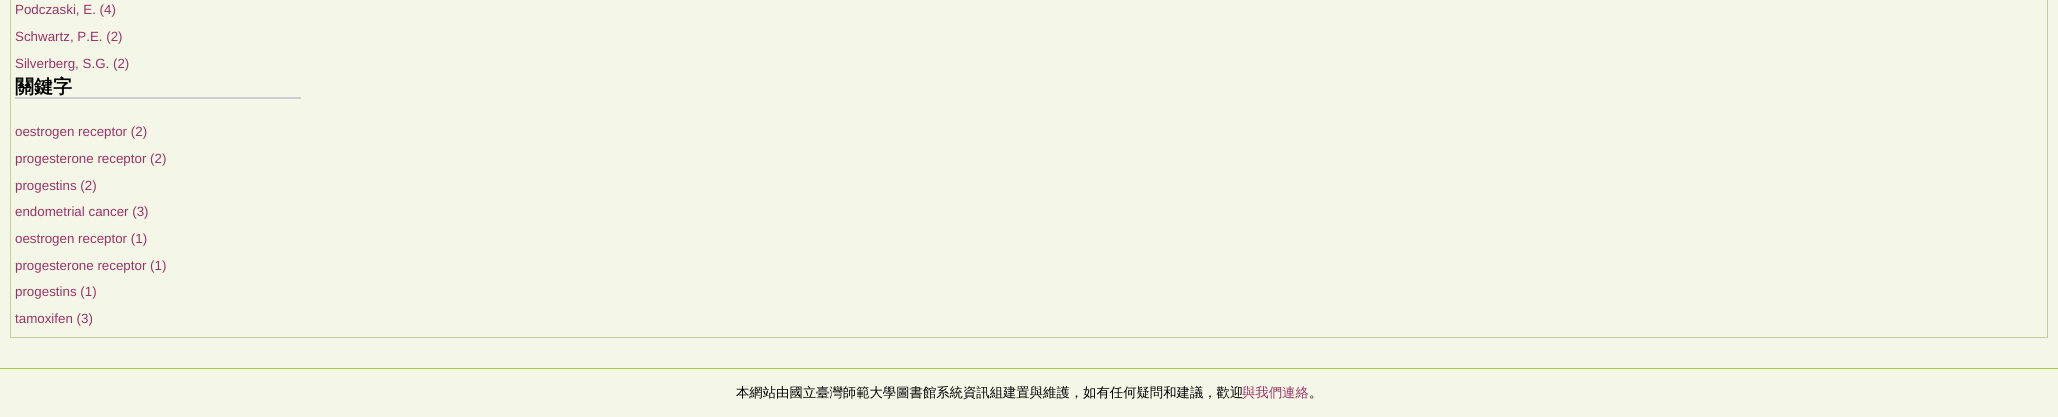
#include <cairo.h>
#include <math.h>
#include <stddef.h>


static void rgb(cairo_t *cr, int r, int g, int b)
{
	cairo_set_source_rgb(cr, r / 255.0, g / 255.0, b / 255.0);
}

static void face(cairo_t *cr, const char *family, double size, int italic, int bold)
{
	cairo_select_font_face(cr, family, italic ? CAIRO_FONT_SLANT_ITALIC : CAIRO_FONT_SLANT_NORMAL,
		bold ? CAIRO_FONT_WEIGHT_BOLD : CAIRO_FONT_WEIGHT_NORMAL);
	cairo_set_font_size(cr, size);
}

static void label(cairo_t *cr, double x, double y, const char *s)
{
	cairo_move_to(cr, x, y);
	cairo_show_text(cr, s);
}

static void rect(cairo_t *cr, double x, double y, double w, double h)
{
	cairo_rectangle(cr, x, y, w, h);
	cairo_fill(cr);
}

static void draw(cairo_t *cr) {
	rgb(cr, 244, 247, 231);
	cairo_paint(cr);
	cairo_rectangle(cr, 10.5, -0.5, 2037, 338);
	rgb(cr, 197, 207, 155);
	cairo_set_line_width(cr, 1);
	cairo_stroke(cr);
	face(cr, "Liberation Sans", 13.35, 0, 0);
	rgb(cr, 153, 51, 102);
	label(cr, 15, 14, "Podczaski, E. (4)");
	label(cr, 15, 41, "Schwartz, P.E. (2)");
	label(cr, 15, 68, "Silverberg, S.G. (2)");
	rgb(cr, 204, 204, 204);
	rect(cr, 15, 97, 286, 2);
	face(cr, "WenQuanYi Zen Hei", 19, 0, 1);
	rgb(cr, 0, 0, 0);
	label(cr, 15, 93, "關鍵字");
	face(cr, "Liberation Sans", 13.35, 0, 0);
	rgb(cr, 153, 51, 102);
	label(cr, 15, 136, "oestrogen receptor (2)");
	label(cr, 15, 163, "progesterone receptor (2)");
	label(cr, 15, 190, "progestins (2)");
	label(cr, 15, 216, "endometrial cancer (3)");
	label(cr, 15, 243, "oestrogen receptor (1)");
	label(cr, 15, 270, "progesterone receptor (1)");
	label(cr, 15, 296, "progestins (1)");
	label(cr, 15, 323, "tamoxifen (3)");
	rgb(cr, 166, 205, 55);
	rect(cr, 0, 368, 2058, 1);
	face(cr, "WenQuanYi Zen Hei Medium", 13.35, 0, 0);
	rgb(cr, 0, 0, 0);
	label(cr, 736, 397, "本網站由國立臺灣師範大學圖書館系統資訊組建置與維護，如有任何疑問和建議，歡迎");
	rgb(cr, 153, 51, 102);
	label(cr, 1242, 397, "與我們連絡");
	rgb(cr, 0, 0, 0);
	label(cr, 1309, 397, "。");
}

int main(void) {
	cairo_surface_t *surface = cairo_image_surface_create(CAIRO_FORMAT_RGB24, 2058, 417);
	cairo_t *cr = cairo_create(surface);
	cairo_font_options_t *options = cairo_font_options_create();
	cairo_font_options_set_hint_metrics(options, CAIRO_HINT_METRICS_OFF);
	cairo_font_options_set_hint_style(options, CAIRO_HINT_STYLE_NONE);
	cairo_set_font_options(cr, options);
	cairo_set_miter_limit(cr, 4);
	draw(cr);
	cairo_surface_write_to_png(surface, "render.png");
	cairo_font_options_destroy(options);
	cairo_destroy(cr);
	cairo_surface_destroy(surface);
	return 0;
}
